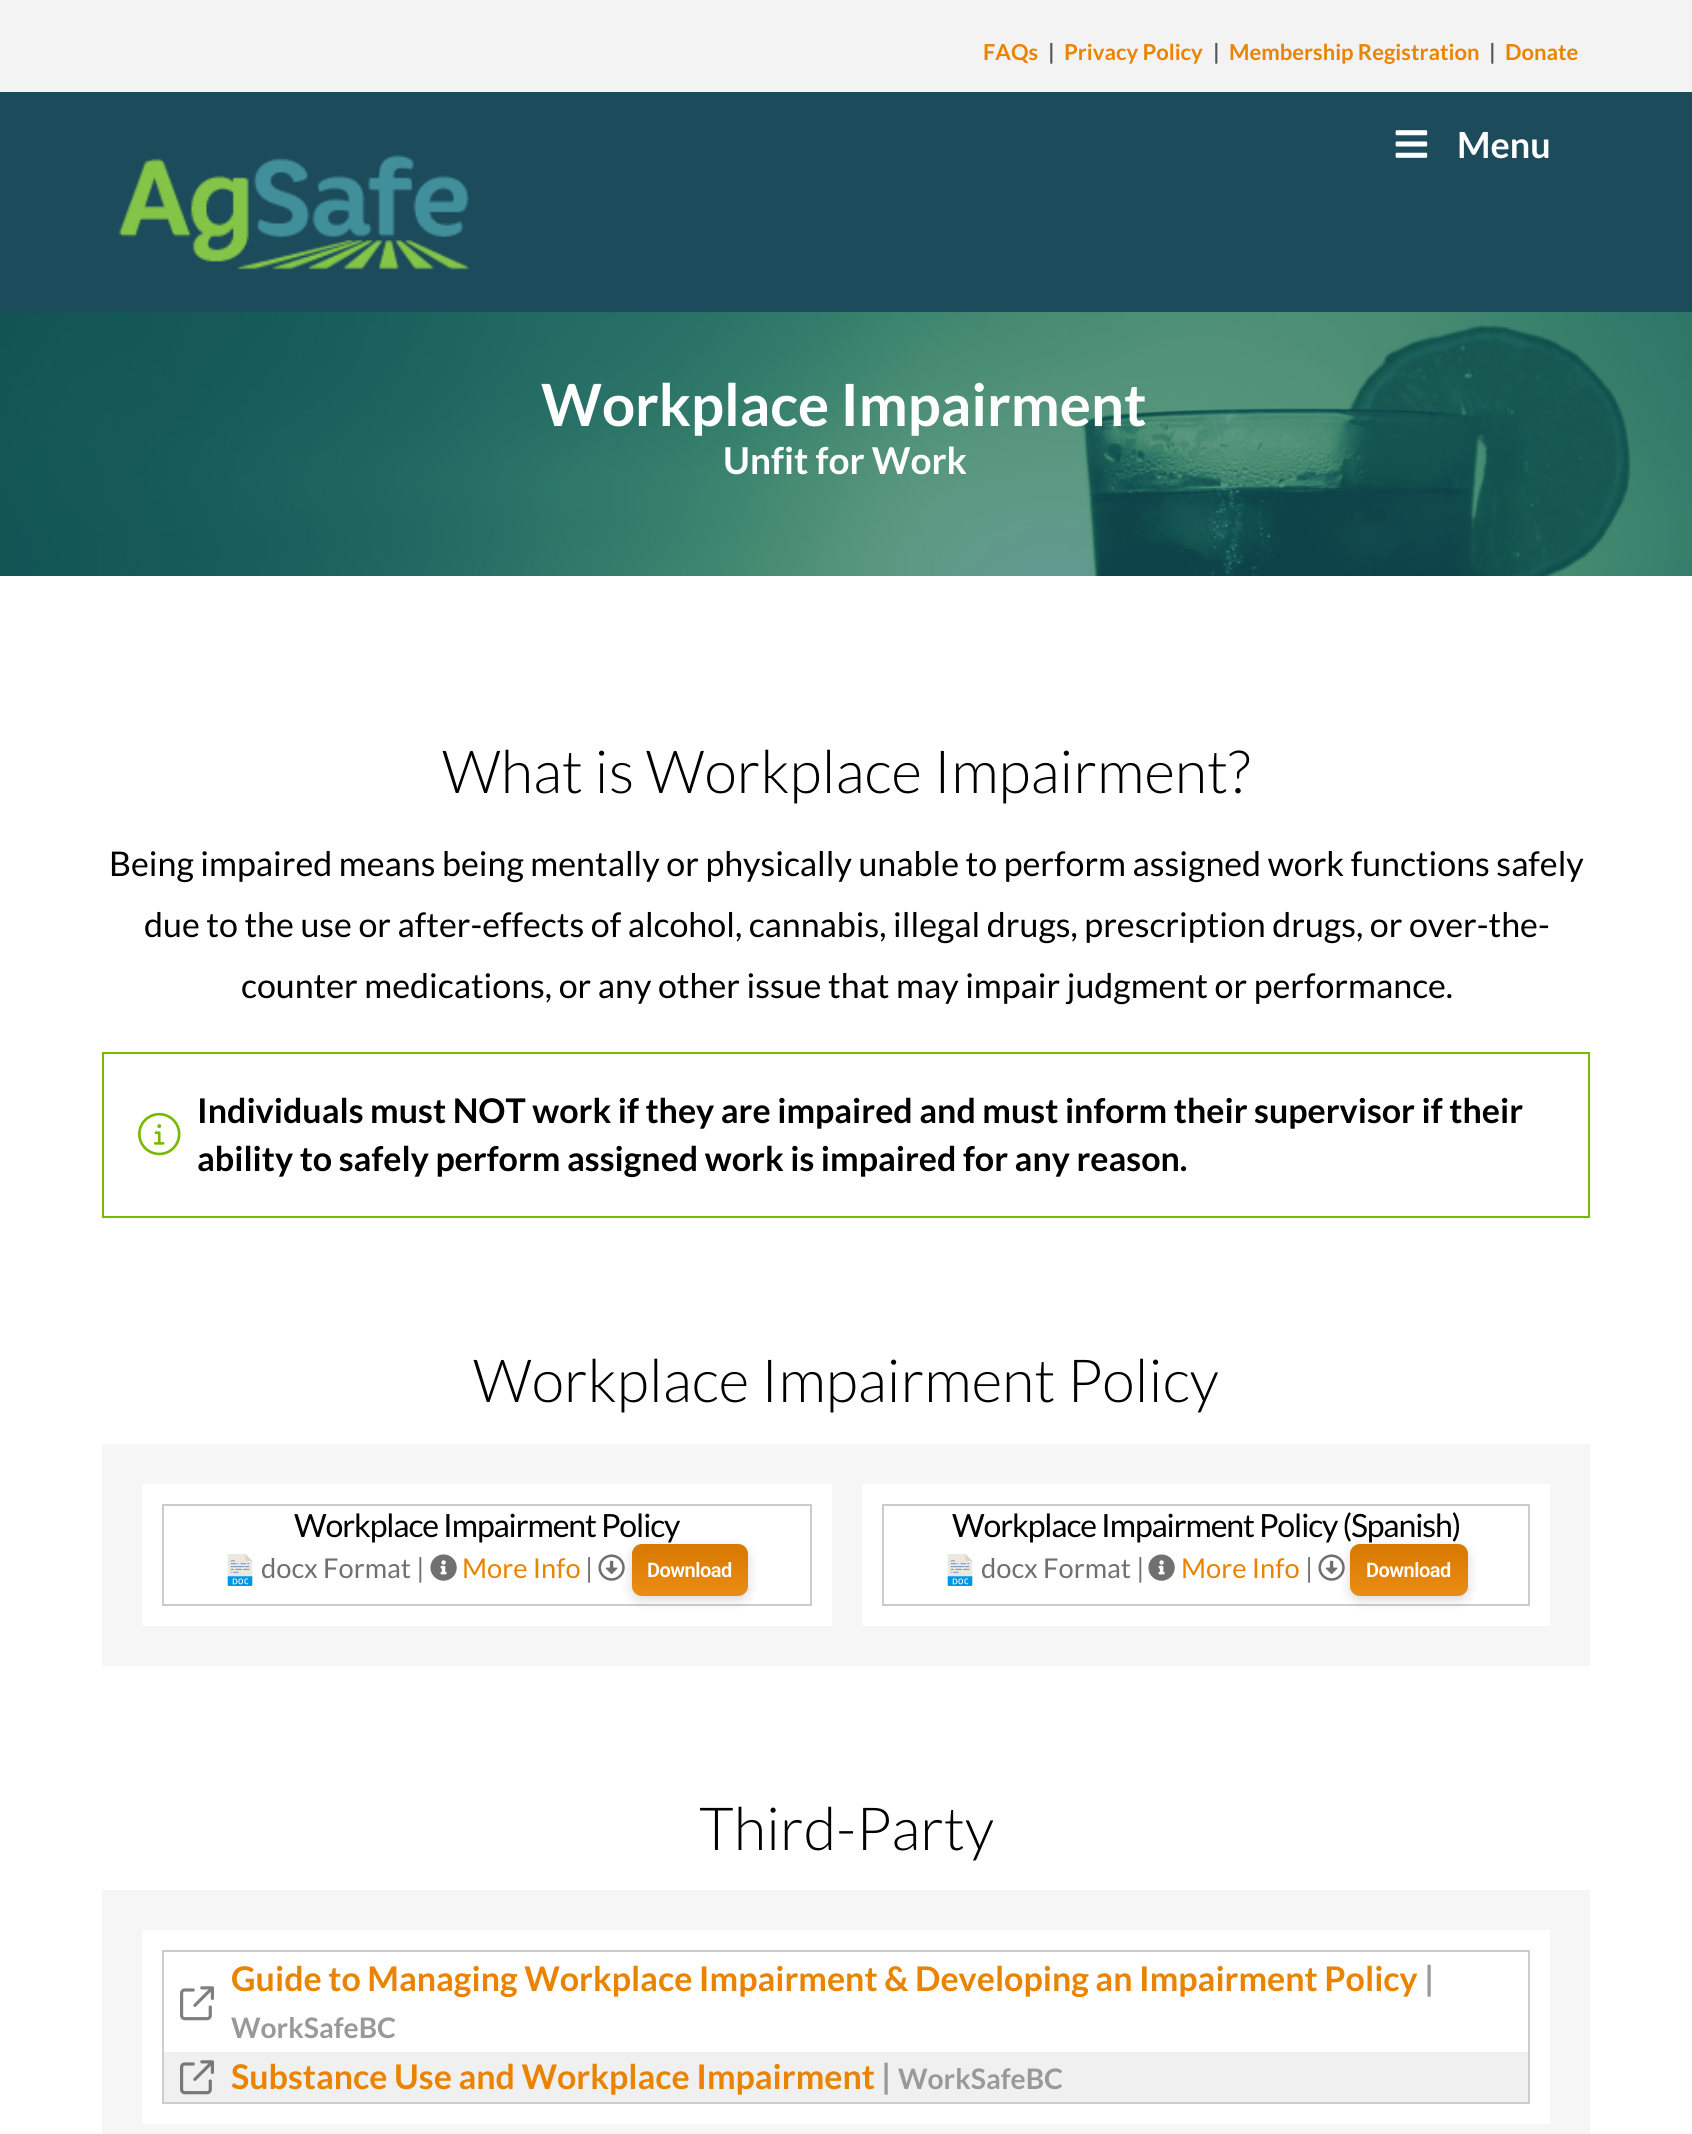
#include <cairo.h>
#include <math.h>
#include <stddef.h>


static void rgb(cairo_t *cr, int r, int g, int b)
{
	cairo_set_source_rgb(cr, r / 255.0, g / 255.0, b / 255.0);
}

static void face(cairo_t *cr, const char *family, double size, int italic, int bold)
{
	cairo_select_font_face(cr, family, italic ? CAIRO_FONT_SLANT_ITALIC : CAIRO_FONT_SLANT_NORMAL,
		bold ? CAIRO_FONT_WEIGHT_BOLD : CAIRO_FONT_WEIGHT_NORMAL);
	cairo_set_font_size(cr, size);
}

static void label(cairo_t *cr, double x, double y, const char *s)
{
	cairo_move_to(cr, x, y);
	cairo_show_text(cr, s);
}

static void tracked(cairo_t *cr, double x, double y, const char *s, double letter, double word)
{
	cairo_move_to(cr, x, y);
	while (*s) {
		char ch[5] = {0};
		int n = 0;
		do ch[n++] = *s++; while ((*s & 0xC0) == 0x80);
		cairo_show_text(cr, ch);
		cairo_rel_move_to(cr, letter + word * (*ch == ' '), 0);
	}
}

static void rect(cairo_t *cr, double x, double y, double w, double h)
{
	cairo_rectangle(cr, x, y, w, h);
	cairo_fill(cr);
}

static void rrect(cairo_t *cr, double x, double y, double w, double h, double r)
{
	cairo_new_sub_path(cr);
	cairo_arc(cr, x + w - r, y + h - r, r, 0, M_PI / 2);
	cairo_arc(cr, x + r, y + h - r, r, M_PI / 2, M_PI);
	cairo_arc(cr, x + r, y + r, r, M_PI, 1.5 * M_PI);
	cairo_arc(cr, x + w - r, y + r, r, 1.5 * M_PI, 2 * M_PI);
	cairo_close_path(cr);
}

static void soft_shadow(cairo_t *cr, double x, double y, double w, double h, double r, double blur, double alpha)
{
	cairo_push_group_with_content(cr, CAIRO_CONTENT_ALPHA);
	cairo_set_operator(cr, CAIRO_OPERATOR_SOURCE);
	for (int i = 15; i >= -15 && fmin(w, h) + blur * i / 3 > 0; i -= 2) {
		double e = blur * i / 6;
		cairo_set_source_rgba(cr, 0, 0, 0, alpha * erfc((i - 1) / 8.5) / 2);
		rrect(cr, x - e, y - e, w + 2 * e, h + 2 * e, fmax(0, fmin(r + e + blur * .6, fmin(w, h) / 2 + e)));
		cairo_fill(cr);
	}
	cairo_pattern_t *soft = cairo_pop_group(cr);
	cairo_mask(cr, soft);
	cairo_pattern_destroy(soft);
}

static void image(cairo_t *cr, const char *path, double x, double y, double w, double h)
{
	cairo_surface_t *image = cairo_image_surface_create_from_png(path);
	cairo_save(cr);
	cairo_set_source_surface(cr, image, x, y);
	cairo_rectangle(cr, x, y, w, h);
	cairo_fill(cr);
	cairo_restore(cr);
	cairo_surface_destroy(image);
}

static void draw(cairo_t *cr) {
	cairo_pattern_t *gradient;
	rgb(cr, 255, 255, 255);
	cairo_paint(cr);
	rgb(cr, 243, 243, 243);
	rect(cr, 0, 0, 1692, 92);
	face(cr, "Lato", 22, 0, 1);
	rgb(cr, 233, 131, 0);
	label(cr, 983, 60, "FAQs");
	rgb(cr, 84, 84, 84);
	label(cr, 1048, 60, "|");
	rgb(cr, 233, 131, 0);
	label(cr, 1064, 60, "Privacy Policy");
	rgb(cr, 84, 84, 84);
	label(cr, 1213, 60, "|");
	rgb(cr, 233, 131, 0);
	label(cr, 1229, 60, "Membership Registration");
	rgb(cr, 84, 84, 84);
	label(cr, 1489, 60, "|");
	rgb(cr, 233, 131, 0);
	label(cr, 1505, 60, "Donate");
	rgb(cr, 28, 75, 92);
	rect(cr, 0, 92, 1692, 220);
	image(cr, "image0.png", 1395, 130, 33, 28);
	face(cr, "Lato", 36, 0, 1);
	rgb(cr, 255, 255, 255);
	label(cr, 1457, 158, "Menu");
	image(cr, "image1.png", 118, 155, 352, 115);
	rgb(cr, 21, 101, 112);
	rect(cr, 0, 312, 1692, 264);
	image(cr, "image2.png", 0, 312, 1692, 264);
	face(cr, "Lato", 58.25, 0, 1);
	rgb(cr, 255, 255, 255);
	label(cr, 541, 426, "Workplace Impairment");
	face(cr, "Lato", 37, 0, 1);
	label(cr, 723, 474, "Unfit for Work");
	face(cr, "Lato Light", 59.5, 0, 0);
	rgb(cr, 0, 0, 0);
	label(cr, 442, 793, "What is Workplace Impairment?");
	face(cr, "Lato", 34, 0, 0);
	label(cr, 109, 876, "Being impaired means being mentally or physically unable to perform assigned work functions safely");
	label(cr, 144, 937, "due to the use or after-effects of alcohol, cannabis, illegal drugs, prescription drugs, or over-the-");
	label(cr, 241, 998, "counter medications, or any other issue that may impair judgment or performance.");
	cairo_rectangle(cr, 103, 1053, 1486, 164);
	rgb(cr, 122, 184, 0);
	cairo_stroke(cr);
	image(cr, "image3.png", 138, 1112, 43, 44);
	face(cr, "Lato", 34, 0, 1);
	rgb(cr, 0, 0, 0);
	label(cr, 197, 1123, "Individuals must NOT work if they are impaired and must inform their supervisor if their");
	label(cr, 197, 1171, "ability to safely perform assigned work is impaired for any reason.");
	face(cr, "Lato Light", 59.5, 0, 0);
	label(cr, 473, 1402, "Workplace Impairment Policy");
	rgb(cr, 246, 246, 246);
	rect(cr, 102, 1444, 1488, 222);
	rgb(cr, 255, 255, 255);
	rect(cr, 142, 1484, 690, 142);
	cairo_rectangle(cr, 163, 1505, 648, 100);
	rgb(cr, 204, 204, 204);
	cairo_stroke(cr);
	face(cr, "Lato", 32, 0, 0);
	rgb(cr, 0, 0, 0);
	tracked(cr, 294, 1537, "Workplace Impairment Policy", -1.1, 0);
	image(cr, "image4.png", 227, 1554, 26, 32);
	face(cr, "Lato", 27.25, 0, 0);
	rgb(cr, 112, 112, 112);
	label(cr, 261, 1578, "docx Format |");
	image(cr, "image5.png", 430, 1554, 27, 27);
	rgb(cr, 233, 131, 0);
	label(cr, 462, 1578, "More Info");
	rgb(cr, 112, 112, 112);
	label(cr, 585, 1578, "|");
	rgb(cr, 0, 0, 0);
	soft_shadow(cr, 632, 1548, 116, 52, 10, 6, 0.15);
	image(cr, "image6.png", 598, 1554, 27, 27);
	rgb(cr, 233, 131, 0);
	rrect(cr, 632, 1544, 116, 52, 10);
	cairo_fill(cr);
	gradient = cairo_pattern_create_linear(690, 1544, 690, 1596);
	cairo_pattern_add_color_stop_rgba(gradient, 0, 0, 0, 0, 0.08);
	cairo_pattern_add_color_stop_rgba(gradient, 1, 1, 1, 1, 0.08);
	cairo_set_source(cr, gradient);
	cairo_pattern_destroy(gradient);
	rrect(cr, 632, 1544, 116, 52, 10);
	cairo_fill(cr);
	face(cr, "Roboto SemiBold", 20, 0, 0);
	rgb(cr, 255, 255, 255);
	tracked(cr, 647, 1577, "Download", -0.5, 0);
	rect(cr, 862, 1484, 688, 142);
	cairo_rectangle(cr, 883, 1505, 646, 100);
	rgb(cr, 204, 204, 204);
	cairo_stroke(cr);
	face(cr, "Lato", 32, 0, 0);
	rgb(cr, 0, 0, 0);
	tracked(cr, 952, 1537, "Workplace Impairment Policy (Spanish)", -1.1, 0);
	image(cr, "image4.png", 947, 1554, 26, 32);
	face(cr, "Lato", 27.25, 0, 0);
	rgb(cr, 112, 112, 112);
	label(cr, 981, 1578, "docx Format |");
	image(cr, "image5.png", 1148, 1554, 27, 27);
	rgb(cr, 233, 131, 0);
	label(cr, 1181, 1578, "More Info");
	rgb(cr, 112, 112, 112);
	label(cr, 1305, 1578, "|");
	rgb(cr, 0, 0, 0);
	soft_shadow(cr, 1350, 1548, 118, 52, 10, 6, 0.15);
	image(cr, "image7.png", 1318, 1554, 27, 27);
	rgb(cr, 233, 131, 0);
	rrect(cr, 1350, 1544, 118, 52, 10);
	cairo_fill(cr);
	gradient = cairo_pattern_create_linear(1409, 1544, 1409, 1596);
	cairo_pattern_add_color_stop_rgba(gradient, 0, 0, 0, 0, 0.08);
	cairo_pattern_add_color_stop_rgba(gradient, 1, 1, 1, 1, 0.08);
	cairo_set_source(cr, gradient);
	cairo_pattern_destroy(gradient);
	rrect(cr, 1350, 1544, 118, 52, 10);
	cairo_fill(cr);
	face(cr, "Roboto SemiBold", 20, 0, 0);
	rgb(cr, 255, 255, 255);
	tracked(cr, 1366, 1577, "Download", -0.5, 0);
	face(cr, "Lato Light", 59.5, 0, 0);
	rgb(cr, 0, 0, 0);
	label(cr, 699, 1850, "Third-Party");
	rgb(cr, 246, 246, 246);
	rect(cr, 102, 1890, 1488, 244);
	rgb(cr, 255, 255, 255);
	rect(cr, 142, 1930, 1408, 194);
	cairo_rectangle(cr, 163, 1951, 1366, 152);
	rgb(cr, 204, 204, 204);
	cairo_stroke(cr);
	image(cr, "image8.png", 180, 1986, 34, 35);
	face(cr, "Lato", 34, 0, 1);
	rgb(cr, 233, 131, 0);
	label(cr, 231, 1991, "Guide to Managing Workplace Impairment & Developing an Impairment Policy");
	rgb(cr, 153, 153, 153);
	label(cr, 1424, 1991, "|");
	face(cr, "Lato", 28.25, 0, 1);
	label(cr, 231, 2038, "WorkSafeBC");
	rgb(cr, 240, 240, 240);
	rect(cr, 164, 2052, 1364, 50);
	image(cr, "image9.png", 180, 2060, 34, 35);
	face(cr, "Lato", 34, 0, 1);
	rgb(cr, 233, 131, 0);
	label(cr, 231, 2089, "Substance Use and Workplace Impairment");
	rgb(cr, 153, 153, 153);
	label(cr, 881, 2089, "|");
	face(cr, "Lato", 28.25, 0, 1);
	label(cr, 898, 2089, "WorkSafeBC");
}

int main(void) {
	cairo_surface_t *surface = cairo_image_surface_create(CAIRO_FORMAT_RGB24, 1692, 2134);
	cairo_t *cr = cairo_create(surface);
	cairo_font_options_t *options = cairo_font_options_create();
	cairo_font_options_set_hint_metrics(options, CAIRO_HINT_METRICS_OFF);
	cairo_font_options_set_hint_style(options, CAIRO_HINT_STYLE_NONE);
	cairo_set_font_options(cr, options);
	cairo_set_miter_limit(cr, 4);
	draw(cr);
	cairo_surface_write_to_png(surface, "render.png");
	cairo_font_options_destroy(options);
	cairo_destroy(cr);
	cairo_surface_destroy(surface);
	return 0;
}
